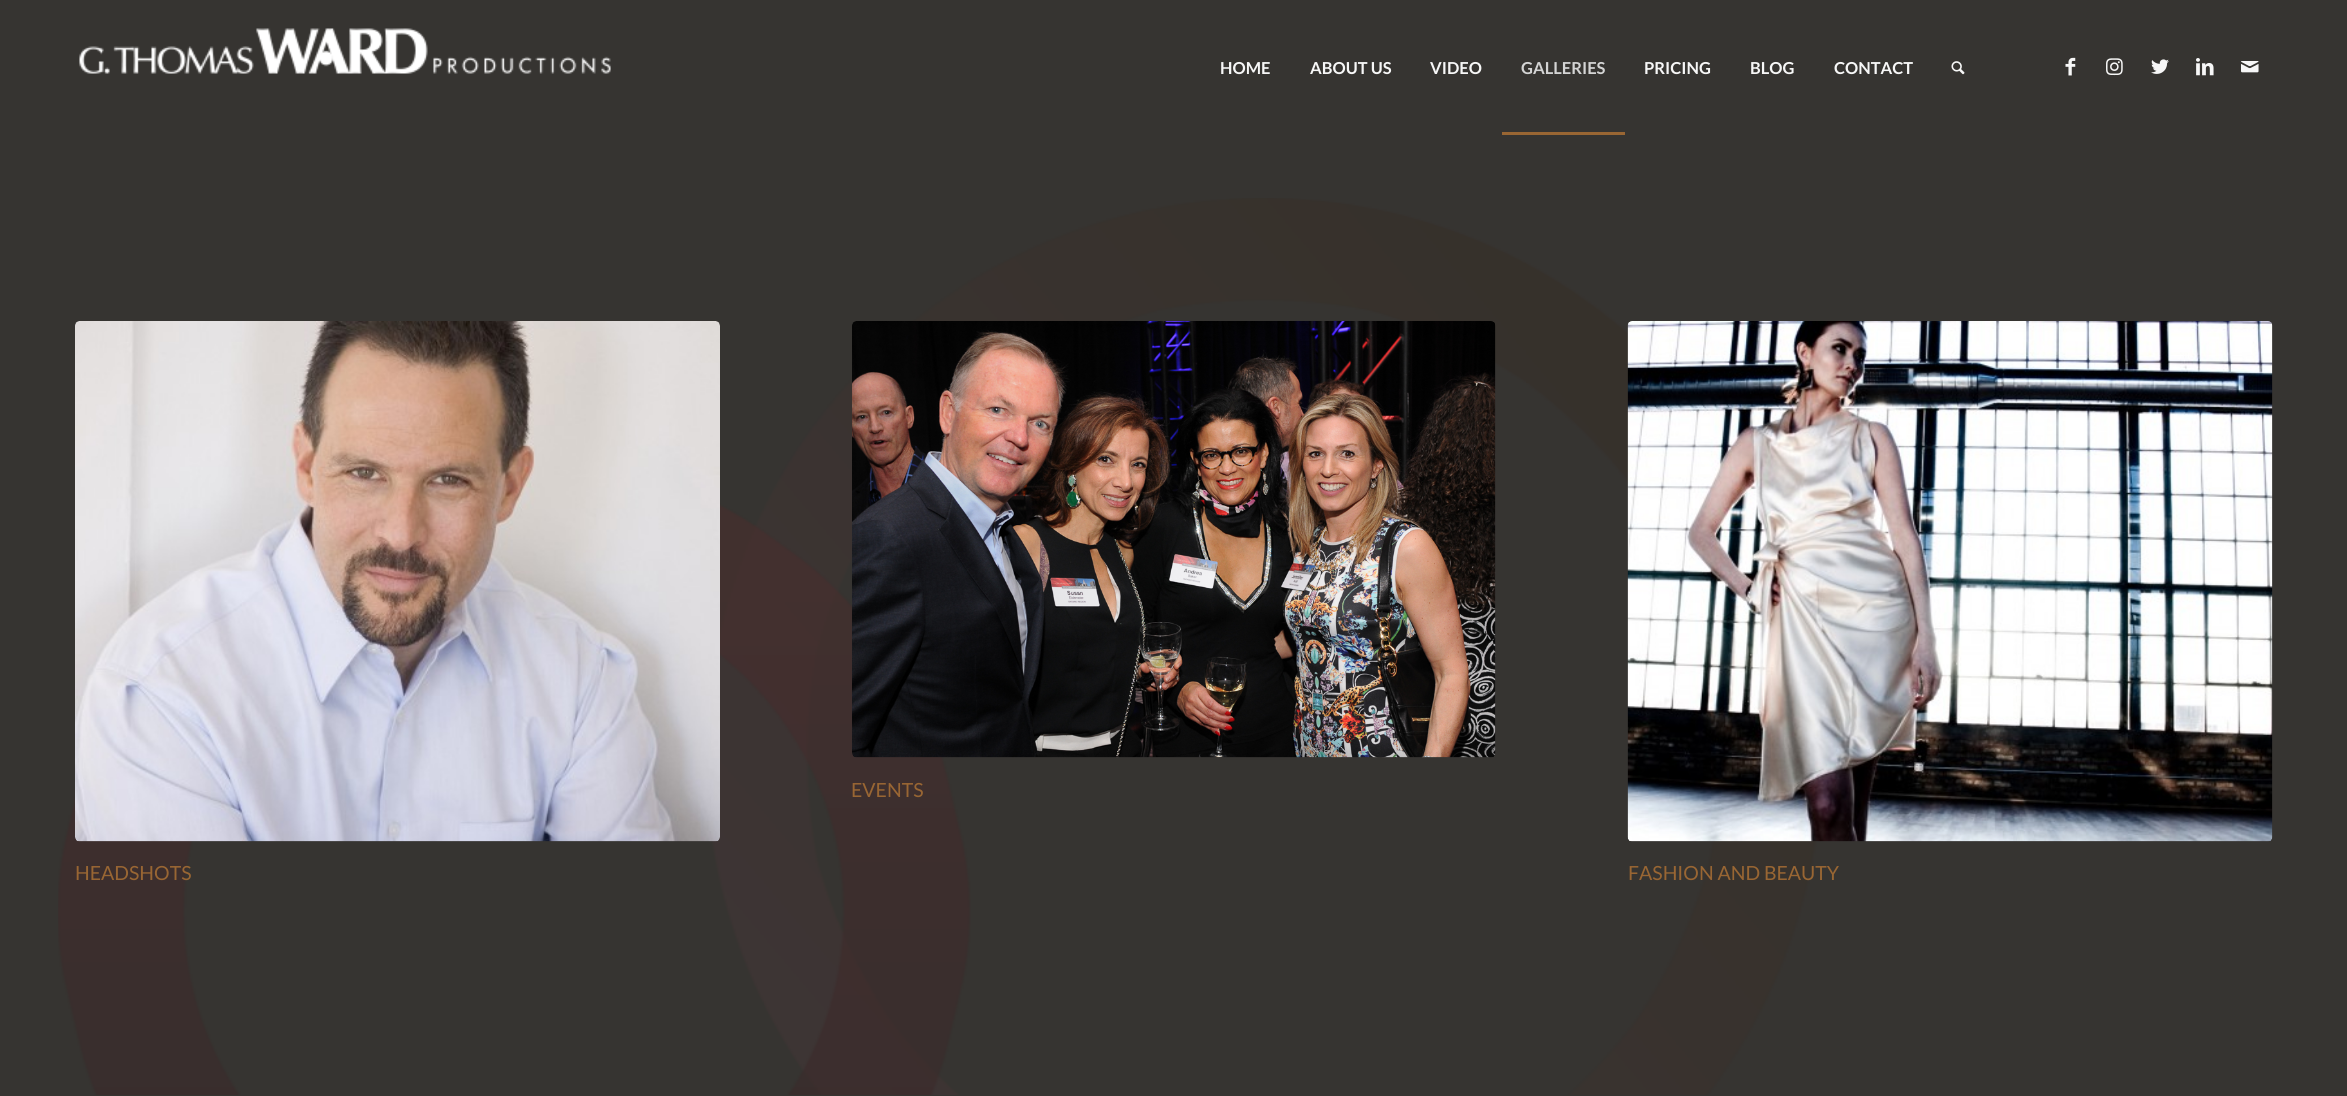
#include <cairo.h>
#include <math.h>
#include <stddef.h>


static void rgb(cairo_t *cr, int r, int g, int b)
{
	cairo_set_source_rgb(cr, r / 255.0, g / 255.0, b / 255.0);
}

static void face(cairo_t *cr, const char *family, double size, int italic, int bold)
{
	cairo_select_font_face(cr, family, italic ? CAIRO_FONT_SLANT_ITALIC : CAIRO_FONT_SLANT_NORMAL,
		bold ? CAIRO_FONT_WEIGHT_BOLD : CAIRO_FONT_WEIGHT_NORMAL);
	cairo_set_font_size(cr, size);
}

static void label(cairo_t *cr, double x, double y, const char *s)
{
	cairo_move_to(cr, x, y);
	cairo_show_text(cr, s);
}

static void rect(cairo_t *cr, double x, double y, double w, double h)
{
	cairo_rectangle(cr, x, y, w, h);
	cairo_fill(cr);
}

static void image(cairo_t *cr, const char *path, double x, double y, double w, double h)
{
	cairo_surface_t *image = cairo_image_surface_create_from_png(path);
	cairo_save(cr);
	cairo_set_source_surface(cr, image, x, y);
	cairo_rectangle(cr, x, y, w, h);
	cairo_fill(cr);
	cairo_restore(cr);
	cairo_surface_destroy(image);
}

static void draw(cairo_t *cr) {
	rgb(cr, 54, 52, 49);
	cairo_paint(cr);
	image(cr, "image0.png", 79, 28, 532, 46);
	face(cr, "Lato", 16.5, 0, 1);
	rgb(cr, 247, 247, 247);
	label(cr, 1220, 74, "HOME");
	label(cr, 1310, 74, "ABOUT US");
	label(cr, 1430, 74, "VIDEO");
	rgb(cr, 212, 212, 212);
	label(cr, 1521, 74, "GALLERIES");
	rgb(cr, 153, 102, 51);
	rect(cr, 1502, 132, 123, 3);
	rgb(cr, 247, 247, 247);
	label(cr, 1644, 74, "PRICING");
	label(cr, 1750, 74, "BLOG");
	label(cr, 1834, 74, "CONTACT");
	image(cr, "image1.png", 1951, 61, 14, 14);
	image(cr, "image2.png", 2065, 57, 11, 19);
	image(cr, "image3.png", 2106, 58, 17, 18);
	image(cr, "image4.png", 2151, 59, 18, 15);
	image(cr, "image5.png", 2196, 58, 18, 18);
	image(cr, "image6.png", 2241, 61, 18, 12);
	image(cr, "image7.png", 58, 198, 1763, 897);
	image(cr, "image8.png", 852, 321, 644, 437);
	face(cr, "Lato", 19.5, 0, 0);
	rgb(cr, 153, 102, 51);
	label(cr, 851, 797, "EVENTS");
	image(cr, "image9.png", 75, 321, 645, 521);
	label(cr, 75, 880, "HEADSHOTS");
	image(cr, "image10.png", 1627, 321, 646, 521);
	label(cr, 1628, 880, "FASHION AND BEAUTY");
}

int main(void) {
	cairo_surface_t *surface = cairo_image_surface_create(CAIRO_FORMAT_RGB24, 2347, 1096);
	cairo_t *cr = cairo_create(surface);
	cairo_font_options_t *options = cairo_font_options_create();
	cairo_font_options_set_hint_metrics(options, CAIRO_HINT_METRICS_OFF);
	cairo_font_options_set_hint_style(options, CAIRO_HINT_STYLE_NONE);
	cairo_set_font_options(cr, options);
	cairo_set_miter_limit(cr, 4);
	draw(cr);
	cairo_surface_write_to_png(surface, "render.png");
	cairo_font_options_destroy(options);
	cairo_destroy(cr);
	cairo_surface_destroy(surface);
	return 0;
}
